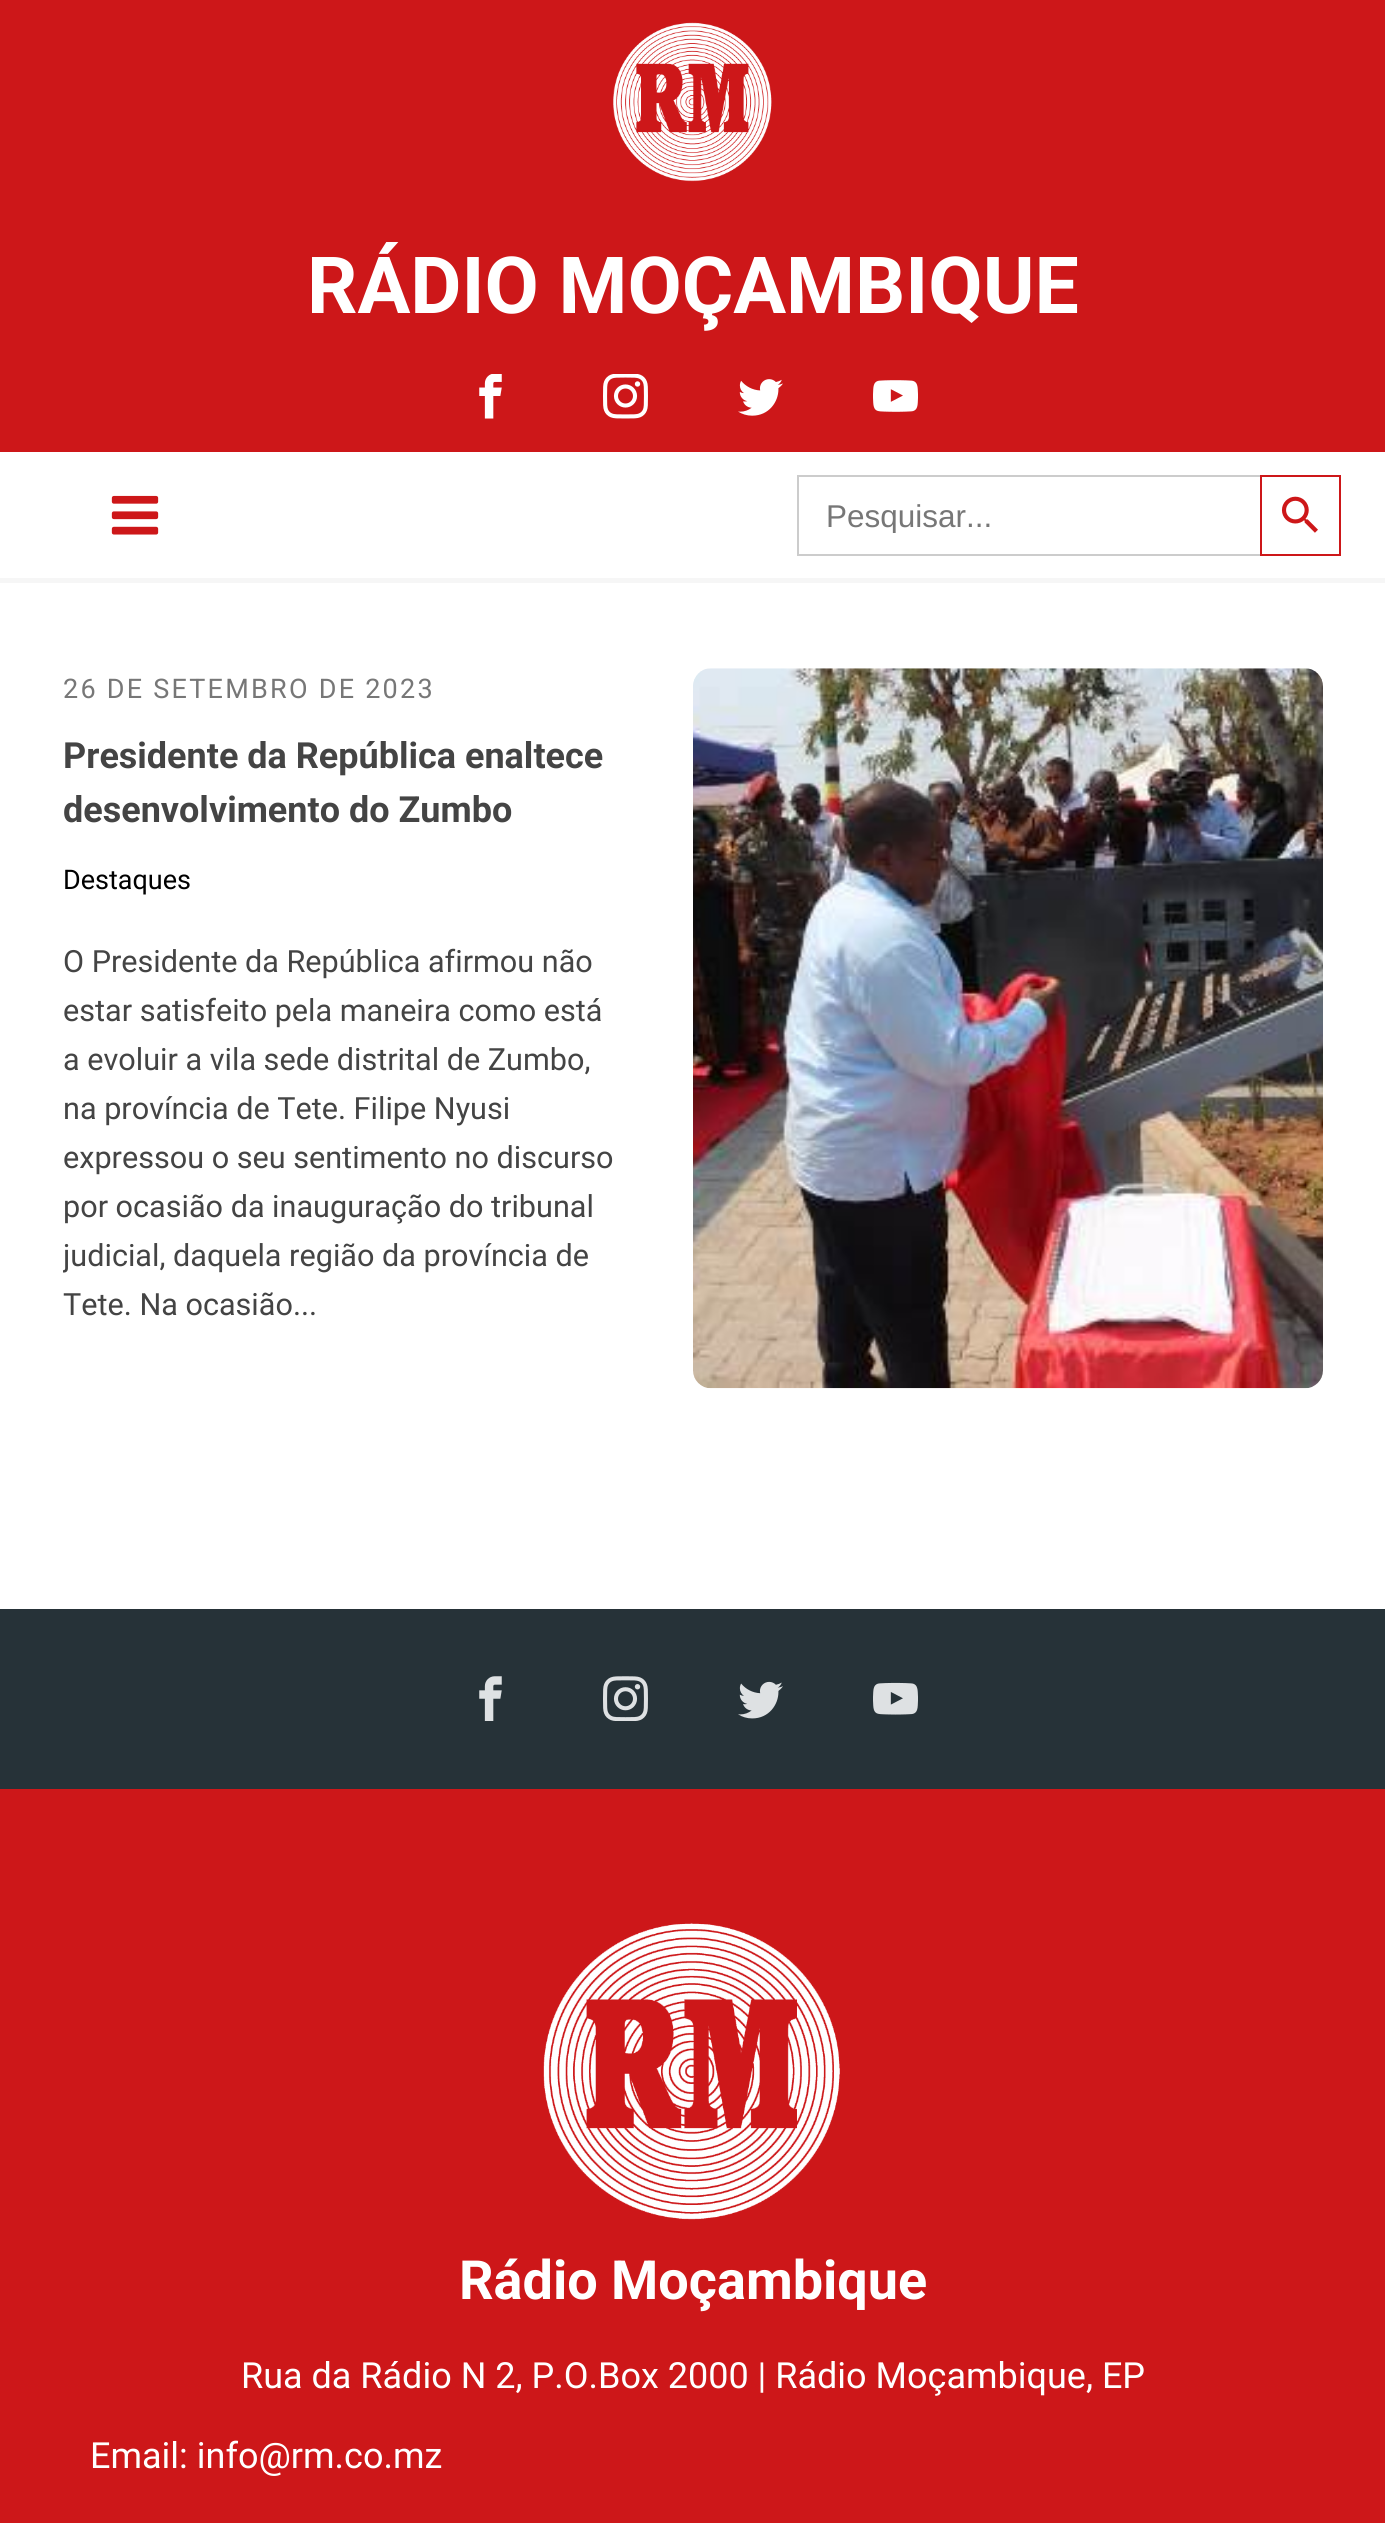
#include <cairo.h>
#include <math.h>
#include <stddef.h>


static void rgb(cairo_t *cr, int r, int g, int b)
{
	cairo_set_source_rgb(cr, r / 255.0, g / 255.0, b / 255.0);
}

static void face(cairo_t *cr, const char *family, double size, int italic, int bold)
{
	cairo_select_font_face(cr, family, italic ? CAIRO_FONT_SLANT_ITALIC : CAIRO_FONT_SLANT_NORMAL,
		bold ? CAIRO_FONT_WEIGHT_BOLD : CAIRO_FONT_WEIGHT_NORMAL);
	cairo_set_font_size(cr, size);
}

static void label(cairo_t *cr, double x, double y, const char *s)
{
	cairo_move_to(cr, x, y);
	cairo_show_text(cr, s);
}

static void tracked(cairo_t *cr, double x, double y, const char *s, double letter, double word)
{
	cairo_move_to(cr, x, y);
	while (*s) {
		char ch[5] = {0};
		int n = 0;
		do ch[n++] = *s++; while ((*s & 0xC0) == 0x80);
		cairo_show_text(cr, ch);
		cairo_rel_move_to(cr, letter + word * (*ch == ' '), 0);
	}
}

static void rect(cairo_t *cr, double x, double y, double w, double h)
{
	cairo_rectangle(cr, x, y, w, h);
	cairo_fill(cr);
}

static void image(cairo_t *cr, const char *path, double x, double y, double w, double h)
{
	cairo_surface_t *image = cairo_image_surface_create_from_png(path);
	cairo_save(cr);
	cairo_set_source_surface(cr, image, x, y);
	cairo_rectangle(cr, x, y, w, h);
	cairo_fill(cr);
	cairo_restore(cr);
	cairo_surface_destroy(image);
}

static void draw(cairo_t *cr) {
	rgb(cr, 255, 255, 255);
	cairo_paint(cr);
	rgb(cr, 205, 23, 25);
	rect(cr, 0, 0, 1385, 452);
	image(cr, "image0.png", 613, 22, 159, 160);
	face(cr, "Roboto", 78.75, 0, 1);
	rgb(cr, 255, 255, 255);
	label(cr, 307, 313, "RÁDIO MOÇAMBIQUE");
	image(cr, "image1.png", 479, 374, 23, 45);
	image(cr, "image2.png", 603, 374, 45, 45);
	image(cr, "image3.png", 738, 379, 45, 37);
	image(cr, "image4.png", 873, 380, 45, 32);
	rgb(cr, 246, 246, 246);
	rect(cr, 0, 578, 1385, 5);
	image(cr, "image5.png", 111, 495, 48, 40);
	rgb(cr, 204, 204, 204);
	rect(cr, 797, 475, 463, 2);
	rect(cr, 797, 554, 463, 2);
	rect(cr, 797, 475, 2, 81);
	cairo_save(cr);
	cairo_rectangle(cr, 826, 497, 407, 36);
	cairo_clip(cr);
	face(cr, "Liberation Sans", 31.5, 0, 0);
	rgb(cr, 119, 119, 119);
	label(cr, 826, 527, "Pesquisar...");
	cairo_restore(cr);
	cairo_rectangle(cr, 1261, 476, 79, 79);
	rgb(cr, 205, 23, 25);
	cairo_stroke(cr);
	image(cr, "image6.png", 1281, 496, 37, 37);
	face(cr, "Roboto", 27, 0, 0);
	rgb(cr, 119, 119, 119);
	tracked(cr, 63, 698, "26 DE SETEMBRO DE 2023", 2.25, 0);
	face(cr, "Roboto", 36, 0, 1);
	rgb(cr, 68, 68, 68);
	label(cr, 63, 768, "Presidente da República enaltece");
	label(cr, 63, 822, "desenvolvimento do Zumbo");
	face(cr, "Roboto", 27, 0, 0);
	rgb(cr, 0, 0, 0);
	label(cr, 63, 889, "Destaques");
	face(cr, "Roboto", 30.6, 0, 0);
	rgb(cr, 68, 68, 68);
	label(cr, 63, 972, "O Presidente da República afirmou não");
	label(cr, 63, 1021, "estar satisfeito pela maneira como está");
	label(cr, 63, 1070, "a evoluir a vila sede distrital de Zumbo,");
	label(cr, 63, 1119, "na província de Tete. Filipe Nyusi");
	label(cr, 63, 1168, "expressou o seu sentimento no discurso");
	label(cr, 63, 1217, "por ocasião da inauguração do tribunal");
	cairo_save(cr);
	cairo_rectangle(cr, 63, 938, 558, 392);
	cairo_clip(cr);
	label(cr, 63, 1266, "judicial, daquela região da província de");
	cairo_restore(cr);
	label(cr, 63, 1315, "Tete. Na ocasião...");
	image(cr, "image7.png", 693, 668, 630, 721);
	rgb(cr, 38, 50, 56);
	rect(cr, 0, 1609, 1385, 180);
	image(cr, "image8.png", 479, 1676, 23, 45);
	image(cr, "image9.png", 603, 1676, 45, 45);
	image(cr, "image10.png", 738, 1681, 45, 38);
	image(cr, "image11.png", 873, 1682, 45, 33);
	rgb(cr, 205, 23, 25);
	rect(cr, 0, 1789, 1385, 734);
	image(cr, "image12.png", 543, 1923, 297, 297);
	face(cr, "Roboto", 54, 0, 1);
	rgb(cr, 255, 255, 255);
	label(cr, 459, 2299, "Rádio Moçambique");
	face(cr, "Roboto", 36, 0, 0);
	label(cr, 241, 2388, "Rua da Rádio N 2, P.O.Box 2000 | Rádio Moçambique, EP");
	label(cr, 90, 2468, "Email: info@rm.co.mz");
}

int main(void) {
	cairo_surface_t *surface = cairo_image_surface_create(CAIRO_FORMAT_RGB24, 1385, 2523);
	cairo_t *cr = cairo_create(surface);
	cairo_font_options_t *options = cairo_font_options_create();
	cairo_font_options_set_hint_metrics(options, CAIRO_HINT_METRICS_OFF);
	cairo_font_options_set_hint_style(options, CAIRO_HINT_STYLE_NONE);
	cairo_set_font_options(cr, options);
	cairo_set_miter_limit(cr, 4);
	draw(cr);
	cairo_surface_write_to_png(surface, "render.png");
	cairo_font_options_destroy(options);
	cairo_destroy(cr);
	cairo_surface_destroy(surface);
	return 0;
}
